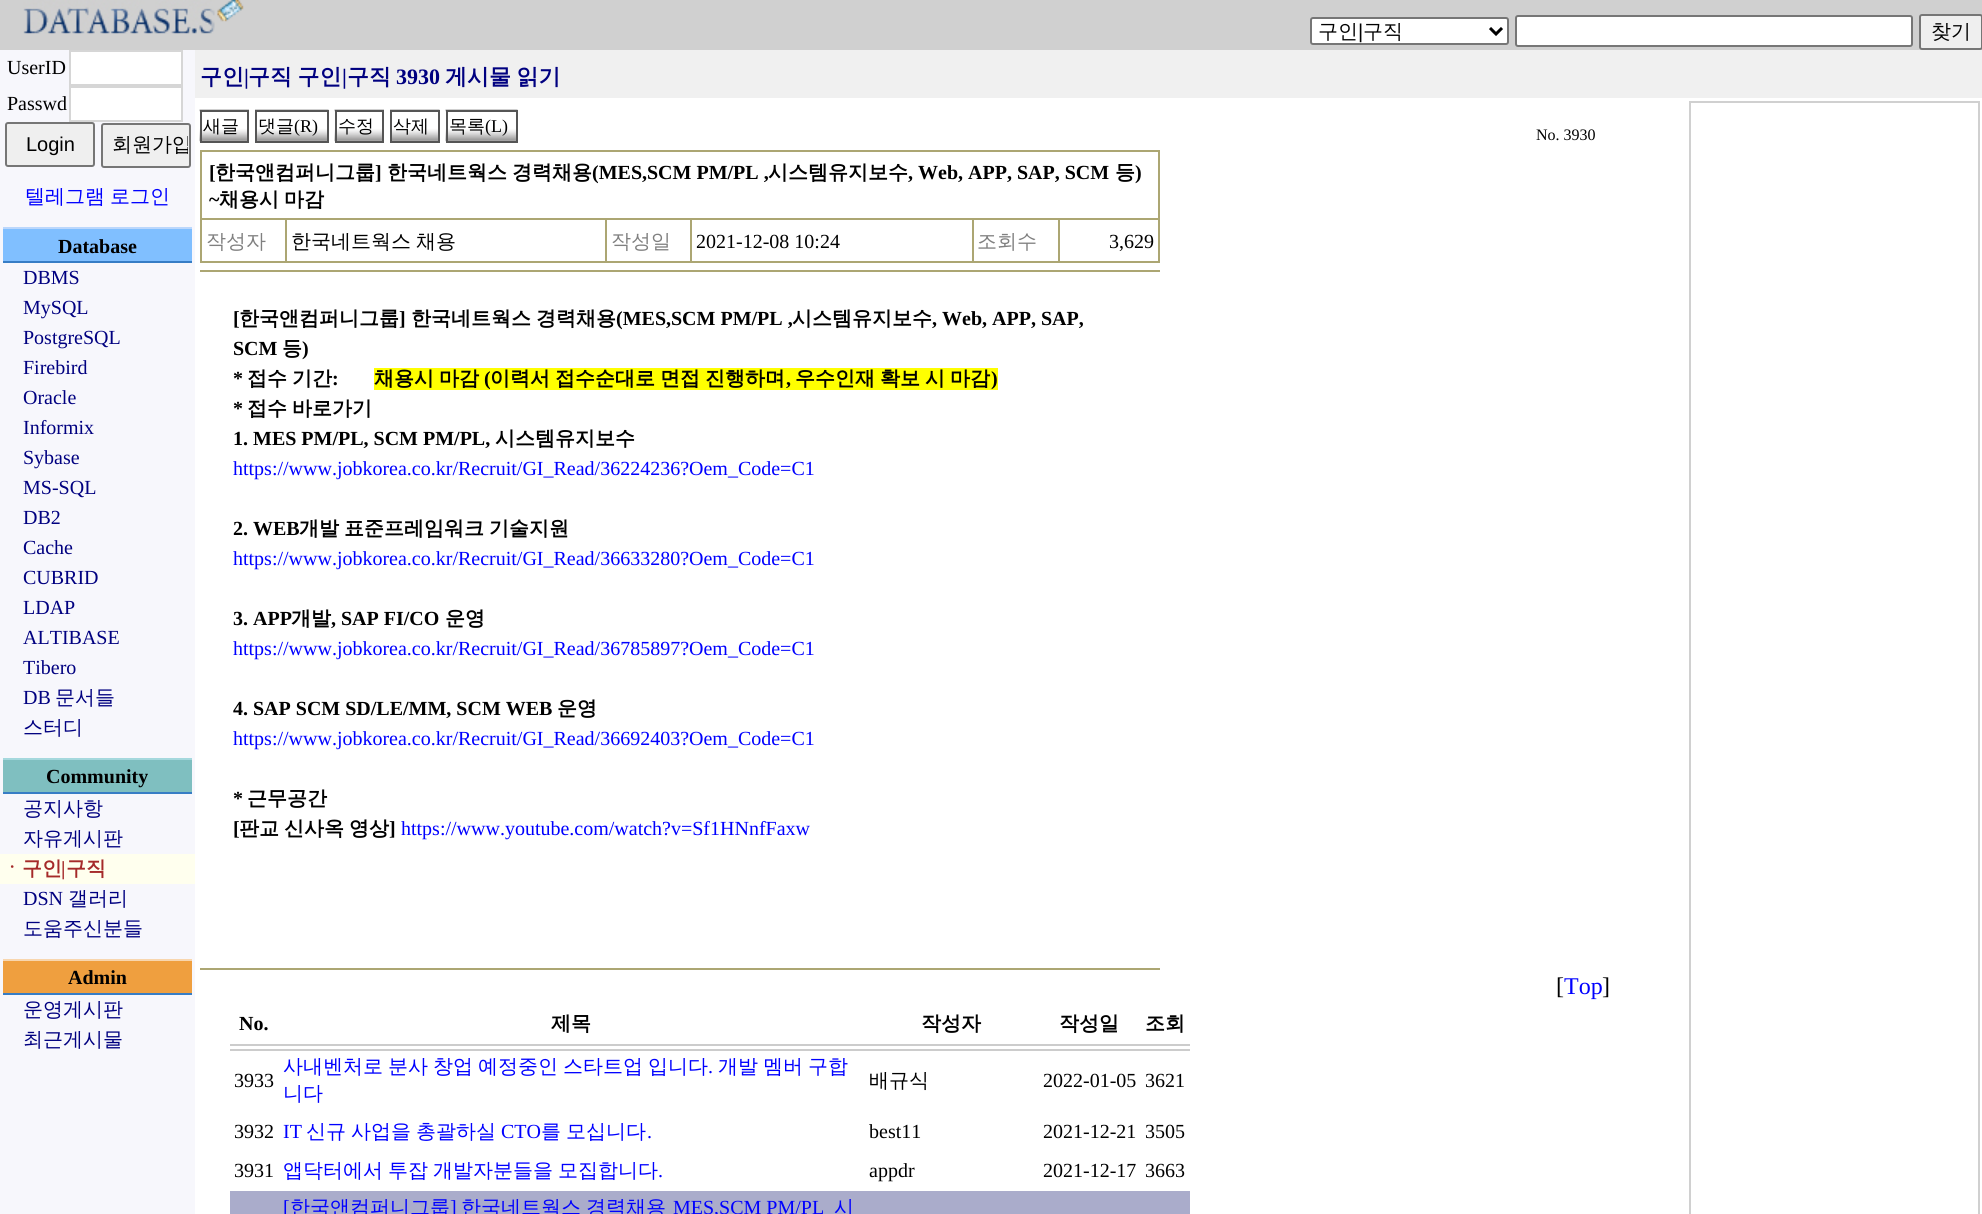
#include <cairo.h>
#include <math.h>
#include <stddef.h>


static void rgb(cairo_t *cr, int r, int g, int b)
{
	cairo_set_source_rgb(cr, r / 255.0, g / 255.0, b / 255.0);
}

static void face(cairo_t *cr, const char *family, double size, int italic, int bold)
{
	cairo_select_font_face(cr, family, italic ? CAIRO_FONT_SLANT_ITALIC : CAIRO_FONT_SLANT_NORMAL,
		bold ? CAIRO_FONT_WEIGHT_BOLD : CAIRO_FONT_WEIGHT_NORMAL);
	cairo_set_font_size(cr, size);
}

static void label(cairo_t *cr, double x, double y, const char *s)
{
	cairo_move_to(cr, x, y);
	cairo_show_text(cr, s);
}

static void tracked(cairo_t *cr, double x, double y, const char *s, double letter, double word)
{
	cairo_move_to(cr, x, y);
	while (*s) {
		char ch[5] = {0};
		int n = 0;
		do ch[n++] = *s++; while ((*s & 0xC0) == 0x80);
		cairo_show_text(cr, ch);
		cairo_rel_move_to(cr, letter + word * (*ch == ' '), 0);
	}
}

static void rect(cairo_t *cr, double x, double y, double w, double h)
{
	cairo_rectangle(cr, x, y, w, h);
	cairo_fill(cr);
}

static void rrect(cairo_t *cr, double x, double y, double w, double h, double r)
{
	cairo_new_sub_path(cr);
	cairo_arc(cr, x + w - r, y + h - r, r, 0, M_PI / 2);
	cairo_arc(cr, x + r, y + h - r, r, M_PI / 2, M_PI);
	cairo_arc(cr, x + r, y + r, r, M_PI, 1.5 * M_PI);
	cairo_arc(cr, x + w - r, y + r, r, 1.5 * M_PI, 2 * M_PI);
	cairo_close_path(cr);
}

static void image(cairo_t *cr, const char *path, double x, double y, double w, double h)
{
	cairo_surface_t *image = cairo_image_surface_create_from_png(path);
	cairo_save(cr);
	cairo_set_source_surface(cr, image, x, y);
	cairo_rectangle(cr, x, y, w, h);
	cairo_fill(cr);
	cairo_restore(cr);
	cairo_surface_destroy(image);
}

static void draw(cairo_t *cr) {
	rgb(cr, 255, 255, 255);
	cairo_paint(cr);
	rgb(cr, 208, 208, 208);
	rect(cr, 0, 0, 1982, 50);
	image(cr, "image0.png", 23, 0, 221, 34);
	rgb(cr, 255, 255, 255);
	rrect(cr, 1311, 18, 197, 26, 2);
	cairo_fill_preserve(cr);
	rgb(cr, 118, 118, 118);
	cairo_stroke(cr);
	cairo_new_path(cr);
	cairo_move_to(cr, 1490, 28);
	cairo_line_to(cr, 1496, 34);
	cairo_line_to(cr, 1502, 28);
	rgb(cr, 0, 0, 0);
	cairo_set_line_width(cr, 3);
	cairo_stroke(cr);
	face(cr, "WenQuanYi Zen Hei Medium", 20, 0, 0);
	label(cr, 1318, 38, "구인");
	face(cr, "Liberation Sans", 20, 0, 0);
	label(cr, 1358, 38, "|");
	face(cr, "WenQuanYi Zen Hei Medium", 20, 0, 0);
	label(cr, 1363, 38, "구직");
	rgb(cr, 255, 255, 255);
	rrect(cr, 1516, 16, 396, 30, 2);
	cairo_fill_preserve(cr);
	rgb(cr, 118, 118, 118);
	cairo_set_line_width(cr, 2);
	cairo_stroke(cr);
	rgb(cr, 239, 239, 239);
	rrect(cr, 1920, 15, 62, 34, 2);
	cairo_fill_preserve(cr);
	rgb(cr, 118, 118, 118);
	cairo_stroke(cr);
	rgb(cr, 0, 0, 0);
	label(cr, 1931, 38, "찾기");
	rgb(cr, 247, 247, 252);
	rect(cr, 0, 50, 195, 1164);
	face(cr, "Liberation Serif", 20, 0, 0);
	rgb(cr, 0, 0, 0);
	label(cr, 7, 74, "UserID");
	rgb(cr, 255, 255, 255);
	cairo_rectangle(cr, 70, 51, 112, 34);
	cairo_fill_preserve(cr);
	rgb(cr, 214, 214, 214);
	cairo_stroke(cr);
	rgb(cr, 0, 0, 0);
	label(cr, 7, 110, "Passwd");
	rgb(cr, 255, 255, 255);
	cairo_rectangle(cr, 70, 87, 112, 34);
	cairo_fill_preserve(cr);
	rgb(cr, 214, 214, 214);
	cairo_stroke(cr);
	rgb(cr, 239, 239, 239);
	rrect(cr, 6, 123, 88, 43, 2);
	cairo_fill_preserve(cr);
	rgb(cr, 118, 118, 118);
	cairo_stroke(cr);
	face(cr, "Liberation Sans", 20, 0, 0);
	rgb(cr, 0, 0, 0);
	label(cr, 26, 151, "Login");
	rgb(cr, 239, 239, 239);
	rrect(cr, 102, 124, 88, 43, 2);
	cairo_fill_preserve(cr);
	rgb(cr, 118, 118, 118);
	cairo_stroke(cr);
	cairo_save(cr);
	cairo_rectangle(cr, 104, 126, 84, 39);
	cairo_clip(cr);
	face(cr, "WenQuanYi Zen Hei Medium", 20, 0, 0);
	rgb(cr, 0, 0, 0);
	label(cr, 112, 151, "회원가입");
	cairo_restore(cr);
	face(cr, "WenQuanYi Zen Hei Medium", 20, 0, 0);
	rgb(cr, 0, 0, 255);
	tracked(cr, 25, 203, "텔레그램 로그인", 0, -1);
	rgb(cr, 128, 191, 255);
	rect(cr, 3, 229, 189, 32);
	rgb(cr, 187, 215, 252);
	rect(cr, 3, 227, 189, 2);
	rgb(cr, 55, 125, 197);
	rect(cr, 3, 261, 189, 2);
	face(cr, "Liberation Serif", 20, 0, 1);
	rgb(cr, 0, 0, 0);
	label(cr, 58, 253, "Database");
	face(cr, "Liberation Serif", 20, 0, 0);
	rgb(cr, 0, 0, 128);
	label(cr, 23, 284, "DBMS");
	label(cr, 23, 314, "MySQL");
	label(cr, 23, 344, "PostgreSQL");
	label(cr, 23, 374, "Firebird");
	label(cr, 23, 404, "Oracle");
	label(cr, 23, 434, "Informix");
	label(cr, 23, 464, "Sybase");
	label(cr, 23, 494, "MS-SQL");
	label(cr, 23, 524, "DB2");
	label(cr, 23, 554, "Cache");
	label(cr, 23, 584, "CUBRID");
	label(cr, 23, 614, "LDAP");
	label(cr, 23, 644, "ALTIBASE");
	label(cr, 23, 674, "Tibero");
	label(cr, 23, 704, "DB");
	face(cr, "WenQuanYi Zen Hei Medium", 20, 0, 0);
	label(cr, 55, 704, "문서들");
	label(cr, 23, 734, "스터디");
	rgb(cr, 127, 191, 192);
	rect(cr, 3, 760, 189, 32);
	rgb(cr, 165, 216, 221);
	rect(cr, 3, 758, 189, 2);
	rgb(cr, 55, 125, 197);
	rect(cr, 3, 792, 189, 2);
	face(cr, "Liberation Serif", 20, 0, 1);
	rgb(cr, 0, 0, 0);
	label(cr, 46, 783, "Community");
	face(cr, "WenQuanYi Zen Hei Medium", 20, 0, 0);
	rgb(cr, 0, 0, 128);
	label(cr, 23, 815, "공지사항");
	label(cr, 23, 845, "자유게시판");
	rgb(cr, 255, 255, 238);
	rect(cr, 0, 854, 195, 30);
	face(cr, "WenQuanYi Zen Hei", 20, 0, 1);
	rgb(cr, 165, 42, 42);
	label(cr, 2, 875, "ㆍ구인");
	face(cr, "Liberation Serif", 20, 0, 1);
	label(cr, 61, 875, "|");
	face(cr, "WenQuanYi Zen Hei", 20, 0, 1);
	label(cr, 66, 875, "구직");
	face(cr, "Liberation Serif", 20, 0, 0);
	rgb(cr, 0, 0, 128);
	label(cr, 23, 905, "DSN");
	face(cr, "WenQuanYi Zen Hei Medium", 20, 0, 0);
	label(cr, 68, 905, "갤러리");
	label(cr, 23, 935, "도움주신분들");
	rgb(cr, 239, 159, 63);
	rect(cr, 3, 961, 189, 32);
	rgb(cr, 248, 214, 174);
	rect(cr, 3, 959, 189, 2);
	rgb(cr, 55, 125, 197);
	rect(cr, 3, 993, 189, 2);
	face(cr, "Liberation Serif", 20, 0, 1);
	rgb(cr, 0, 0, 0);
	label(cr, 68, 984, "Admin");
	face(cr, "WenQuanYi Zen Hei Medium", 20, 0, 0);
	rgb(cr, 0, 0, 128);
	label(cr, 23, 1016, "운영게시판");
	label(cr, 23, 1046, "최근게시물");
	rgb(cr, 240, 240, 240);
	rect(cr, 195, 50, 1787, 48);
	face(cr, "WenQuanYi Zen Hei", 22, 0, 1);
	rgb(cr, 0, 0, 128);
	label(cr, 200, 84, "구인");
	face(cr, "Liberation Serif", 22, 0, 1);
	label(cr, 244, 84, "|");
	face(cr, "WenQuanYi Zen Hei", 22, 0, 1);
	tracked(cr, 248, 84, "구직 구인", 0, -1);
	face(cr, "Liberation Serif", 22, 0, 1);
	label(cr, 342, 84, "|");
	face(cr, "WenQuanYi Zen Hei", 22, 0, 1);
	label(cr, 347, 84, "구직");
	face(cr, "Liberation Serif", 22, 0, 1);
	label(cr, 396, 84, "3930");
	face(cr, "WenQuanYi Zen Hei", 22, 0, 1);
	tracked(cr, 445, 84, "게시물 읽기", 0, -1);
	image(cr, "image1.png", 199, 109, 50, 34);
	cairo_rectangle(cr, 201, 111, 47, 31);
	rgb(cr, 85, 85, 85);
	cairo_stroke(cr);
	face(cr, "WenQuanYi Zen Hei Medium", 18, 0, 0);
	rgb(cr, 0, 0, 0);
	label(cr, 203, 132, "새글");
	image(cr, "image2.png", 255, 109, 74, 32);
	cairo_rectangle(cr, 256, 111, 72, 31);
	rgb(cr, 85, 85, 85);
	cairo_stroke(cr);
	rgb(cr, 0, 0, 0);
	label(cr, 258, 132, "댓글");
	face(cr, "Liberation Serif", 18, 0, 0);
	label(cr, 294, 132, "(R)");
	image(cr, "image1.png", 334, 109, 50, 34);
	cairo_rectangle(cr, 336, 111, 47, 31);
	rgb(cr, 85, 85, 85);
	cairo_stroke(cr);
	face(cr, "WenQuanYi Zen Hei Medium", 18, 0, 0);
	rgb(cr, 0, 0, 0);
	label(cr, 338, 132, "수정");
	image(cr, "image3.png", 390, 109, 50, 32);
	cairo_rectangle(cr, 391, 111, 48, 31);
	rgb(cr, 85, 85, 85);
	cairo_stroke(cr);
	rgb(cr, 0, 0, 0);
	label(cr, 393, 132, "삭제");
	image(cr, "image4.png", 445, 109, 73, 34);
	cairo_rectangle(cr, 447, 111, 70, 31);
	rgb(cr, 85, 85, 85);
	cairo_stroke(cr);
	rgb(cr, 0, 0, 0);
	label(cr, 449, 132, "목록");
	face(cr, "Liberation Serif", 18, 0, 0);
	label(cr, 485, 132, "(L)");
	face(cr, "Liberation Serif", 16, 0, 0);
	label(cr, 1536, 140, "No. 3930");
	rgb(cr, 172, 166, 115);
	rect(cr, 200, 150, 960, 2);
	rect(cr, 200, 150, 2, 113);
	rect(cr, 1158, 152, 2, 67);
	rect(cr, 201, 218, 959, 2);
	face(cr, "Liberation Serif", 20, 0, 1);
	rgb(cr, 0, 0, 0);
	label(cr, 209, 179, "[");
	face(cr, "WenQuanYi Zen Hei", 20, 0, 1);
	label(cr, 215, 179, "한국앤컴퍼니그룹");
	face(cr, "Liberation Serif", 20, 0, 1);
	label(cr, 375, 179, "]");
	face(cr, "WenQuanYi Zen Hei", 20, 0, 1);
	label(cr, 387, 179, "한국네트웍스");
	label(cr, 512, 179, "경력채용");
	face(cr, "Liberation Serif", 20, 0, 1);
	label(cr, 592, 179, "(MES,SCM PM/PL ,");
	face(cr, "WenQuanYi Zen Hei", 20, 0, 1);
	label(cr, 768, 179, "시스템유지보수");
	face(cr, "Liberation Serif", 20, 0, 1);
	label(cr, 908, 179, ", Web, APP, SAP, SCM");
	face(cr, "WenQuanYi Zen Hei", 20, 0, 1);
	label(cr, 1115, 179, "등");
	face(cr, "Liberation Serif", 20, 0, 1);
	label(cr, 1135, 179, ")");
	label(cr, 209, 206, "~");
	face(cr, "WenQuanYi Zen Hei", 20, 0, 1);
	tracked(cr, 219, 206, "채용시 마감", 0, -1);
	rgb(cr, 172, 166, 115);
	rect(cr, 285, 219, 2, 44);
	rect(cr, 201, 261, 86, 2);
	face(cr, "WenQuanYi Zen Hei Medium", 20, 0, 0);
	rgb(cr, 128, 128, 128);
	label(cr, 206, 248, "작성자");
	rgb(cr, 172, 166, 115);
	rect(cr, 605, 219, 2, 44);
	rect(cr, 287, 261, 319, 2);
	rgb(cr, 0, 0, 0);
	tracked(cr, 291, 248, "한국네트웍스 채용", 0, -1);
	rgb(cr, 172, 166, 115);
	rect(cr, 690, 219, 2, 44);
	rect(cr, 606, 261, 86, 2);
	rgb(cr, 128, 128, 128);
	label(cr, 611, 248, "작성일");
	rgb(cr, 172, 166, 115);
	rect(cr, 972, 219, 2, 44);
	rect(cr, 692, 261, 282, 2);
	face(cr, "Liberation Serif", 20, 0, 0);
	rgb(cr, 0, 0, 0);
	label(cr, 696, 248, "2021-12-08 10:24");
	rgb(cr, 172, 166, 115);
	rect(cr, 1058, 219, 2, 44);
	rect(cr, 974, 261, 85, 2);
	face(cr, "WenQuanYi Zen Hei Medium", 20, 0, 0);
	rgb(cr, 128, 128, 128);
	label(cr, 977, 248, "조회수");
	rgb(cr, 172, 166, 115);
	rect(cr, 1158, 219, 2, 44);
	rect(cr, 1059, 261, 101, 2);
	face(cr, "Liberation Serif", 20, 0, 0);
	rgb(cr, 0, 0, 0);
	label(cr, 1109, 248, "3,629");
	rgb(cr, 172, 166, 115);
	rect(cr, 200, 270, 960, 2);
	rect(cr, 200, 968, 960, 2);
	face(cr, "Liberation Serif", 20, 0, 1);
	rgb(cr, 0, 0, 0);
	label(cr, 233, 325, "[");
	face(cr, "WenQuanYi Zen Hei", 20, 0, 1);
	label(cr, 239, 325, "한국앤컴퍼니그룹");
	face(cr, "Liberation Serif", 20, 0, 1);
	label(cr, 399, 325, "]");
	face(cr, "WenQuanYi Zen Hei", 20, 0, 1);
	label(cr, 411, 325, "한국네트웍스");
	label(cr, 536, 325, "경력채용");
	face(cr, "Liberation Serif", 20, 0, 1);
	label(cr, 616, 325, "(MES,SCM PM/PL ,");
	face(cr, "WenQuanYi Zen Hei", 20, 0, 1);
	label(cr, 792, 325, "시스템유지보수");
	face(cr, "Liberation Serif", 20, 0, 1);
	label(cr, 932, 325, ", Web, APP, SAP,");
	label(cr, 233, 355, "SCM");
	face(cr, "WenQuanYi Zen Hei", 20, 0, 1);
	label(cr, 282, 355, "등");
	face(cr, "Liberation Serif", 20, 0, 1);
	label(cr, 302, 355, ")");
	label(cr, 233, 385, "*");
	face(cr, "WenQuanYi Zen Hei", 20, 0, 1);
	tracked(cr, 247, 385, "접수 기간", 0, -1);
	face(cr, "Liberation Serif", 20, 0, 1);
	label(cr, 332, 385, ":");
	rgb(cr, 255, 255, 0);
	rect(cr, 374, 368, 624, 22);
	face(cr, "WenQuanYi Zen Hei", 20, 0, 1);
	rgb(cr, 0, 0, 0);
	tracked(cr, 374, 385, "채용시 마감", 0, -1);
	face(cr, "Liberation Serif", 20, 0, 1);
	label(cr, 484, 385, "(");
	face(cr, "WenQuanYi Zen Hei", 20, 0, 1);
	tracked(cr, 490, 385, "이력서 접수순대로 면접 진행하며", 0, -1);
	face(cr, "Liberation Serif", 20, 0, 1);
	label(cr, 786, 385, ",");
	face(cr, "WenQuanYi Zen Hei", 20, 0, 1);
	tracked(cr, 795, 385, "우수인재 확보 시 마감", 0, -1);
	face(cr, "Liberation Serif", 20, 0, 1);
	label(cr, 991, 385, ")");
	label(cr, 233, 415, "*");
	face(cr, "WenQuanYi Zen Hei", 20, 0, 1);
	tracked(cr, 247, 415, "접수 바로가기", 0, -1);
	face(cr, "Liberation Serif", 20, 0, 1);
	label(cr, 233, 445, "1. MES PM/PL, SCM PM/PL,");
	face(cr, "WenQuanYi Zen Hei", 20, 0, 1);
	label(cr, 495, 445, "시스템유지보수");
	face(cr, "Liberation Serif", 20, 0, 0);
	rgb(cr, 0, 0, 255);
	label(cr, 233, 475, "https://www.jobkorea.co.kr/Recruit/GI_Read/36224236?Oem_Code=C1");
	face(cr, "Liberation Serif", 20, 0, 1);
	rgb(cr, 0, 0, 0);
	label(cr, 233, 535, "2. WEB");
	face(cr, "WenQuanYi Zen Hei", 20, 0, 1);
	label(cr, 299, 535, "개발");
	label(cr, 344, 535, "표준프레임워크");
	label(cr, 489, 535, "기술지원");
	face(cr, "Liberation Serif", 20, 0, 0);
	rgb(cr, 0, 0, 255);
	label(cr, 233, 565, "https://www.jobkorea.co.kr/Recruit/GI_Read/36633280?Oem_Code=C1");
	face(cr, "Liberation Serif", 20, 0, 1);
	rgb(cr, 0, 0, 0);
	label(cr, 233, 625, "3. APP");
	face(cr, "WenQuanYi Zen Hei", 20, 0, 1);
	label(cr, 291, 625, "개발");
	face(cr, "Liberation Serif", 20, 0, 1);
	label(cr, 331, 625, ", SAP FI/CO");
	face(cr, "WenQuanYi Zen Hei", 20, 0, 1);
	label(cr, 445, 625, "운영");
	face(cr, "Liberation Serif", 20, 0, 0);
	rgb(cr, 0, 0, 255);
	label(cr, 233, 655, "https://www.jobkorea.co.kr/Recruit/GI_Read/36785897?Oem_Code=C1");
	face(cr, "Liberation Serif", 20, 0, 1);
	rgb(cr, 0, 0, 0);
	label(cr, 233, 715, "4. SAP SCM SD/LE/MM, SCM WEB");
	face(cr, "WenQuanYi Zen Hei", 20, 0, 1);
	label(cr, 557, 715, "운영");
	face(cr, "Liberation Serif", 20, 0, 0);
	rgb(cr, 0, 0, 255);
	label(cr, 233, 745, "https://www.jobkorea.co.kr/Recruit/GI_Read/36692403?Oem_Code=C1");
	face(cr, "Liberation Serif", 20, 0, 1);
	rgb(cr, 0, 0, 0);
	label(cr, 233, 805, "*");
	face(cr, "WenQuanYi Zen Hei", 20, 0, 1);
	label(cr, 247, 805, "근무공간");
	face(cr, "Liberation Serif", 20, 0, 1);
	label(cr, 233, 835, "[");
	face(cr, "WenQuanYi Zen Hei", 20, 0, 1);
	tracked(cr, 239, 835, "판교 신사옥 영상", 0, -1);
	face(cr, "Liberation Serif", 20, 0, 1);
	label(cr, 389, 835, "]");
	face(cr, "Liberation Serif", 20, 0, 0);
	rgb(cr, 0, 0, 255);
	label(cr, 401, 835, "https://www.youtube.com/watch?v=Sf1HNnfFaxw");
	face(cr, "Liberation Serif", 24, 0, 0);
	rgb(cr, 0, 0, 0);
	label(cr, 1556, 994, "[");
	rgb(cr, 0, 0, 255);
	label(cr, 1564, 994, "Top");
	rgb(cr, 0, 0, 0);
	label(cr, 1602, 994, "]");
	rgb(cr, 204, 204, 204);
	rect(cr, 230, 1044, 960, 2);
	rect(cr, 230, 1049, 960, 2);
	face(cr, "Liberation Serif", 20, 0, 1);
	rgb(cr, 0, 0, 0);
	label(cr, 239, 1030, "No.");
	face(cr, "WenQuanYi Zen Hei", 20, 0, 1);
	label(cr, 551, 1030, "제목");
	label(cr, 921, 1030, "작성자");
	label(cr, 1059, 1030, "작성일");
	label(cr, 1145, 1030, "조회");
	face(cr, "Liberation Serif", 20, 0, 0);
	label(cr, 234, 1087, "3933");
	face(cr, "WenQuanYi Zen Hei Medium", 20, 0, 0);
	rgb(cr, 0, 0, 255);
	tracked(cr, 283, 1073, "사내벤처로 분사 창업 예정중인 스타트업 입니다", 0, -1);
	face(cr, "Liberation Serif", 20, 0, 0);
	label(cr, 708, 1073, ".");
	face(cr, "WenQuanYi Zen Hei Medium", 20, 0, 0);
	tracked(cr, 718, 1073, "개발 멤버 구합", 0, -1);
	label(cr, 283, 1100, "니다");
	rgb(cr, 0, 0, 0);
	label(cr, 869, 1087, "배규식");
	face(cr, "Liberation Serif", 20, 0, 0);
	label(cr, 1043, 1087, "2022-01-05");
	label(cr, 1145, 1087, "3621");
	label(cr, 234, 1138, "3932");
	rgb(cr, 0, 0, 255);
	label(cr, 283, 1138, "IT");
	face(cr, "WenQuanYi Zen Hei Medium", 20, 0, 0);
	tracked(cr, 306, 1138, "신규 사업을 총괄하실", 0, -1);
	face(cr, "Liberation Serif", 20, 0, 0);
	label(cr, 501, 1138, "CTO");
	face(cr, "WenQuanYi Zen Hei Medium", 20, 0, 0);
	tracked(cr, 541, 1138, "를 모십니다", 0, -1);
	face(cr, "Liberation Serif", 20, 0, 0);
	label(cr, 647, 1138, ".");
	rgb(cr, 0, 0, 0);
	label(cr, 869, 1138, "best11");
	label(cr, 1043, 1138, "2021-12-21");
	label(cr, 1145, 1138, "3505");
	label(cr, 234, 1177, "3931");
	face(cr, "WenQuanYi Zen Hei Medium", 20, 0, 0);
	rgb(cr, 0, 0, 255);
	tracked(cr, 283, 1177, "앱닥터에서 투잡 개발자분들을 모집합니다", 0, -1);
	face(cr, "Liberation Serif", 20, 0, 0);
	label(cr, 658, 1177, ".");
	rgb(cr, 0, 0, 0);
	label(cr, 869, 1177, "appdr");
	label(cr, 1043, 1177, "2021-12-17");
	label(cr, 1145, 1177, "3663");
	rgb(cr, 170, 172, 203);
	rect(cr, 230, 1191, 960, 23);
	rgb(cr, 0, 0, 255);
	label(cr, 283, 1214, "[");
	face(cr, "WenQuanYi Zen Hei Medium", 20, 0, 0);
	label(cr, 290, 1214, "한국앤컴퍼니그룹");
	face(cr, "Liberation Serif", 20, 0, 0);
	label(cr, 450, 1214, "]");
	face(cr, "WenQuanYi Zen Hei Medium", 20, 0, 0);
	label(cr, 461, 1214, "한국네트웍스");
	label(cr, 586, 1214, "경력채용");
	face(cr, "Liberation Serif", 20, 0, 0);
	label(cr, 673, 1214, "MES,SCM PM/PL");
	face(cr, "WenQuanYi Zen Hei Medium", 20, 0, 0);
	label(cr, 834, 1214, "시");
	cairo_rectangle(cr, 1690, 102, 289, 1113);
	rgb(cr, 208, 208, 208);
	cairo_stroke(cr);
}

int main(void) {
	cairo_surface_t *surface = cairo_image_surface_create(CAIRO_FORMAT_RGB24, 1982, 1214);
	cairo_t *cr = cairo_create(surface);
	cairo_font_options_t *options = cairo_font_options_create();
	cairo_font_options_set_hint_metrics(options, CAIRO_HINT_METRICS_OFF);
	cairo_font_options_set_hint_style(options, CAIRO_HINT_STYLE_NONE);
	cairo_set_font_options(cr, options);
	cairo_set_miter_limit(cr, 4);
	draw(cr);
	cairo_surface_write_to_png(surface, "render.png");
	cairo_font_options_destroy(options);
	cairo_destroy(cr);
	cairo_surface_destroy(surface);
	return 0;
}
